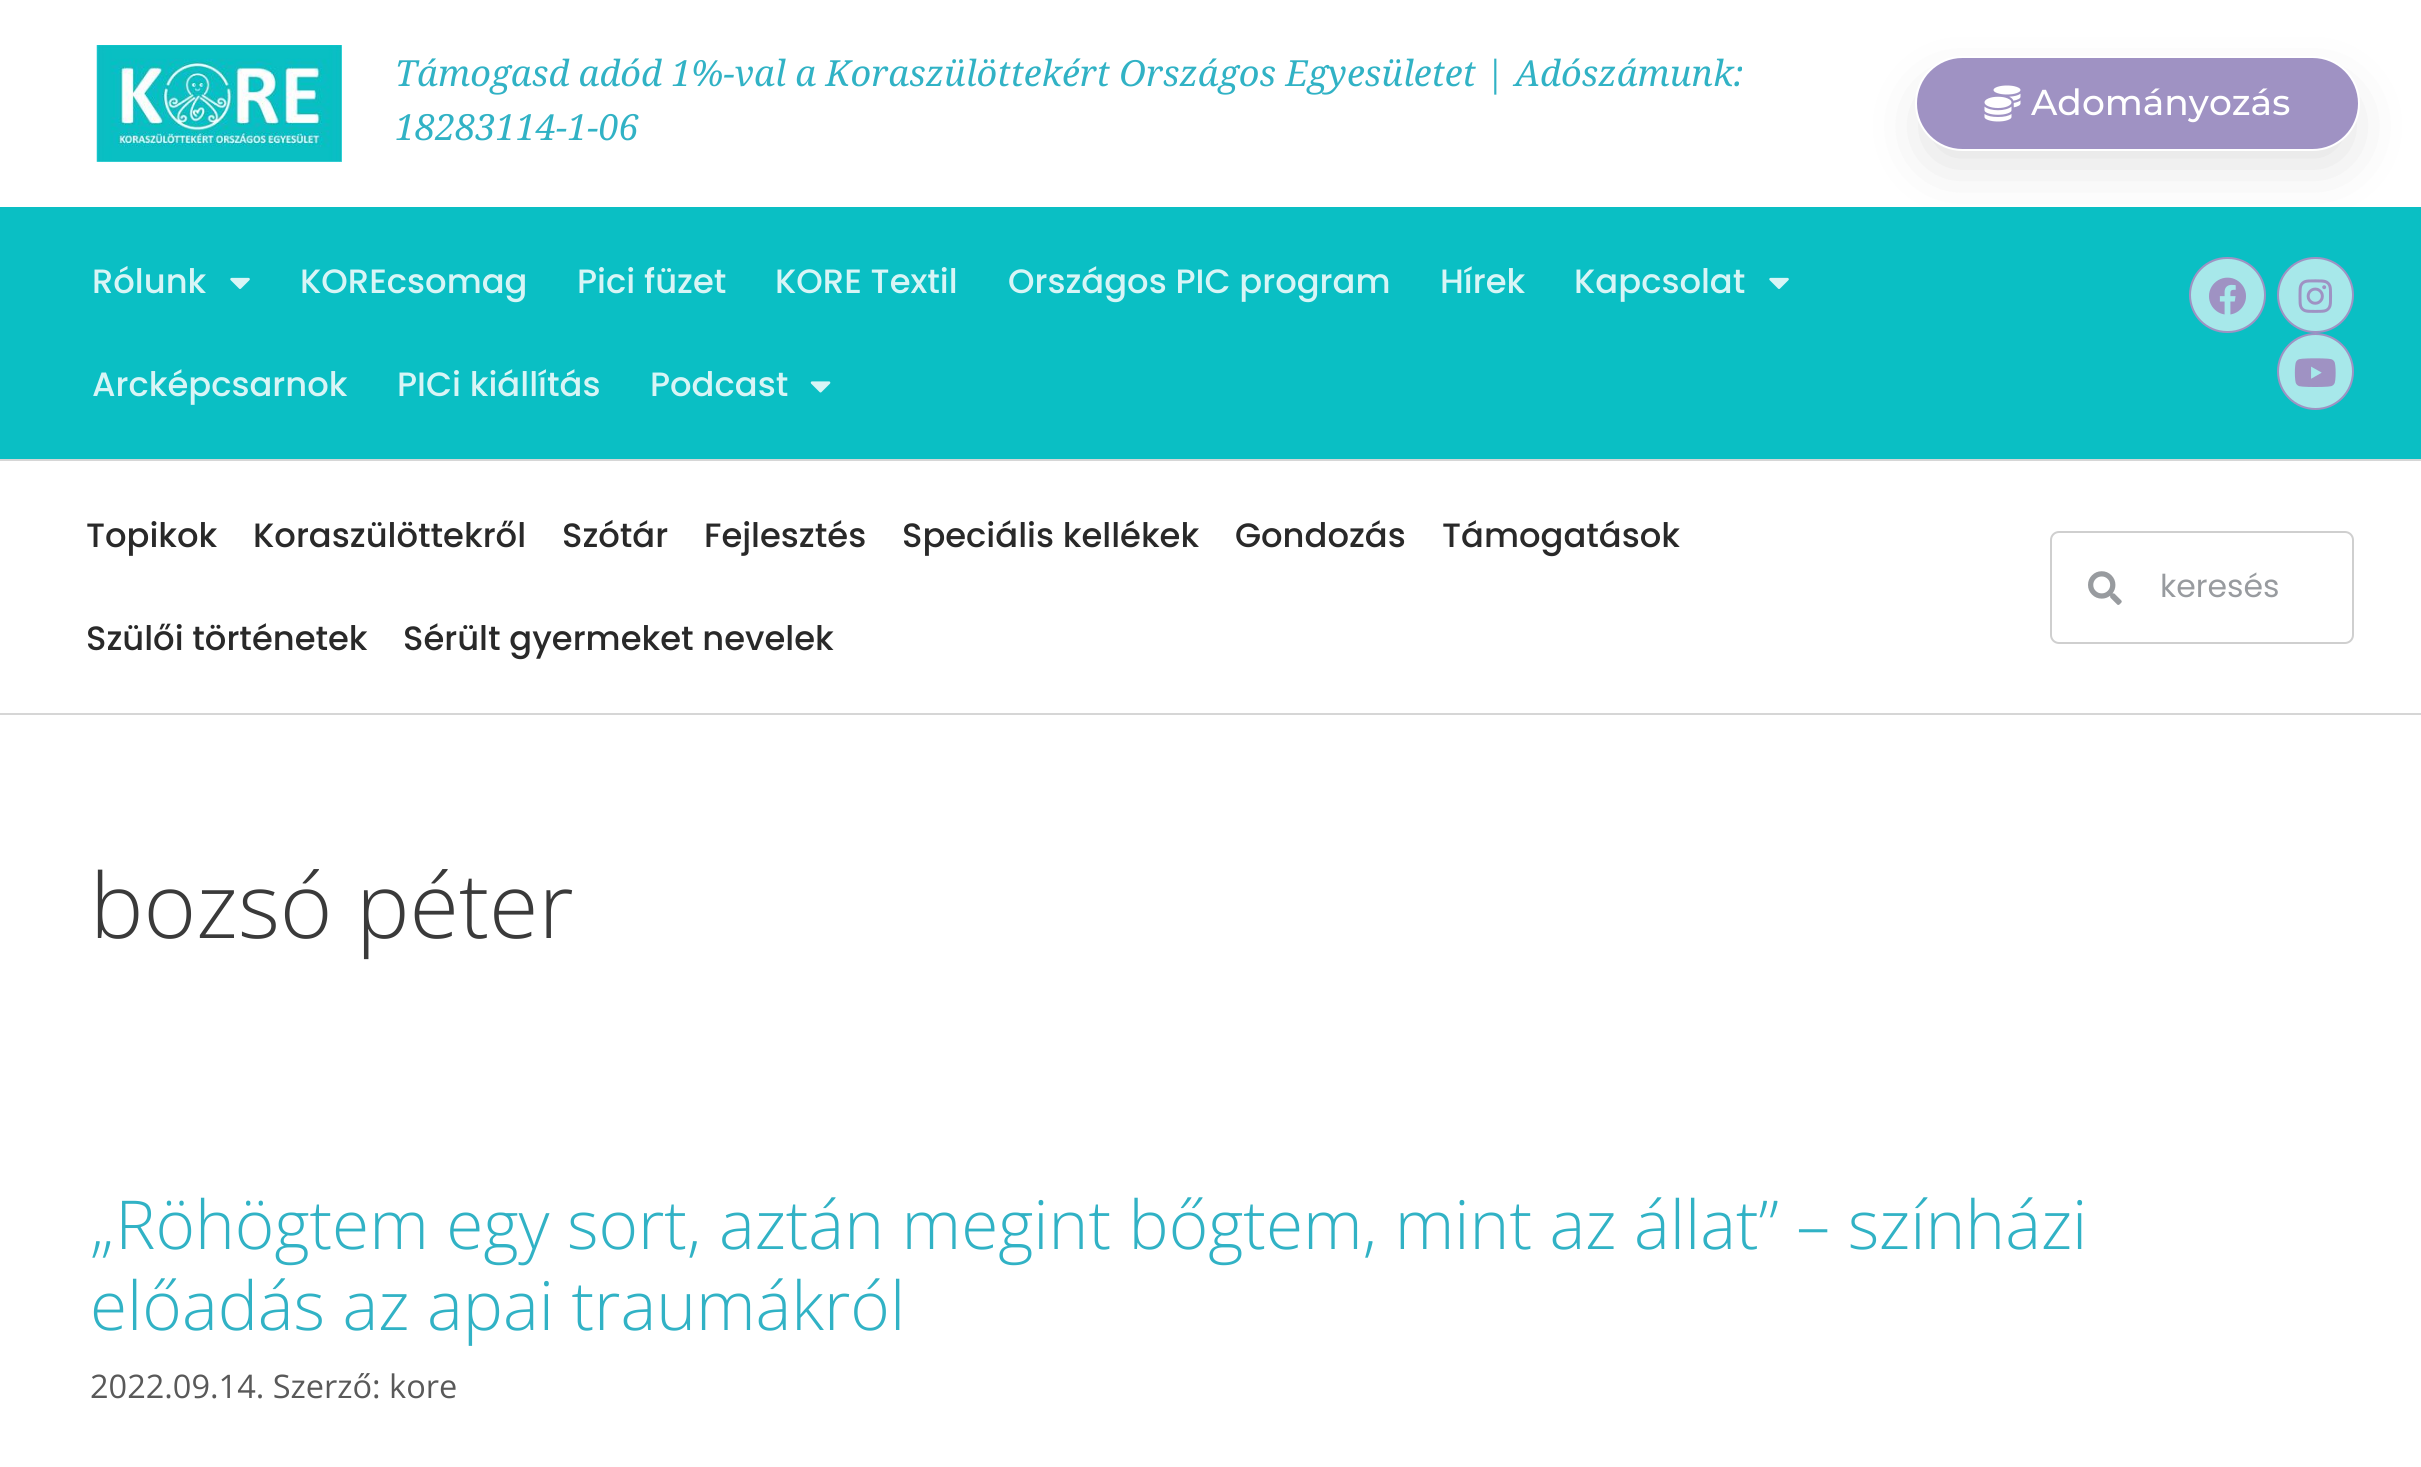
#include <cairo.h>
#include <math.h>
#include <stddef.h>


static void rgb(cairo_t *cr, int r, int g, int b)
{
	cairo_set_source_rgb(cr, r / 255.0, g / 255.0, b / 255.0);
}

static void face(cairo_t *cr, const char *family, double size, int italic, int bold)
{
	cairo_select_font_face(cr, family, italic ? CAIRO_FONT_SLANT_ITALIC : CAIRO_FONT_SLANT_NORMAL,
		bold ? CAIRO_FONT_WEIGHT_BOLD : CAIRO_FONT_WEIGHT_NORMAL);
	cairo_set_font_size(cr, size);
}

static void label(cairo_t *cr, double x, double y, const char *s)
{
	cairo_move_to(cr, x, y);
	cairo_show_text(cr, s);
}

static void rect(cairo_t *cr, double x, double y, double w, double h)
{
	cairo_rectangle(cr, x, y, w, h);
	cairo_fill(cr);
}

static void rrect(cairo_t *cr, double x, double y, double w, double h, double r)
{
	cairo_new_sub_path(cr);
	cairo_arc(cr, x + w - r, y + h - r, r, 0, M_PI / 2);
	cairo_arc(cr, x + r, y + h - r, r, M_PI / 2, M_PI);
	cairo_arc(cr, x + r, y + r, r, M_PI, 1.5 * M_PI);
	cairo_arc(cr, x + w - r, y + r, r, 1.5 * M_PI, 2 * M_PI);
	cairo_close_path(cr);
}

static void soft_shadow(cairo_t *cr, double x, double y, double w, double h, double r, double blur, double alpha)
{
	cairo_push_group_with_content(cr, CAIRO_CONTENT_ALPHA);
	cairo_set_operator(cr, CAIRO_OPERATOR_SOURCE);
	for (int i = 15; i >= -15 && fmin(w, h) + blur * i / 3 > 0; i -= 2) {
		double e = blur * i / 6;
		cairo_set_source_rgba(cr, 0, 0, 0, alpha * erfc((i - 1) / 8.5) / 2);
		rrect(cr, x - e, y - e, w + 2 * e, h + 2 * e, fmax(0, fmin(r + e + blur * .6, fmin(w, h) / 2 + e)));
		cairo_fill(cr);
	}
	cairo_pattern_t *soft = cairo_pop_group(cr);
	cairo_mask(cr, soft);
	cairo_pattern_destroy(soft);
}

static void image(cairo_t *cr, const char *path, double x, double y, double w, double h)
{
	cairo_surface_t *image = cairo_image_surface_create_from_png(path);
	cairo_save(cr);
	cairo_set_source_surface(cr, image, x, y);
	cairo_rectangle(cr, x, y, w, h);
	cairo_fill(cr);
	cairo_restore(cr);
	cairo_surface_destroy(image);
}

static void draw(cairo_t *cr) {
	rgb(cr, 255, 255, 255);
	cairo_paint(cr);
	image(cr, "image0.png", 96, 45, 246, 117);
	face(cr, "Noto Serif", 36, 1, 0);
	rgb(cr, 49, 178, 197);
	label(cr, 395, 86, "Támogasd adód 1%-val a Koraszülöttekért Országos Egyesületet | Adószámunk:");
	label(cr, 395, 140, "18283114-1-06");
	rgb(cr, 0, 0, 0);
	soft_shadow(cr, 1935, 99, 405, 54, 27, 34, 0.16);
	rgb(cr, 159, 146, 195);
	rrect(cr, 1916, 57, 443, 93, 46.5);
	cairo_fill_preserve(cr);
	rgb(cr, 255, 255, 255);
	cairo_stroke(cr);
	image(cr, "image1.png", 1984, 85, 37, 37);
	face(cr, "Montserrat Medium", 36, 0, 0);
	label(cr, 2031, 115, "Adományozás");
	rgb(cr, 10, 191, 196);
	rect(cr, 0, 207, 2421, 252);
	rgb(cr, 214, 214, 214);
	rect(cr, 0, 459, 2421, 2);
	face(cr, "Poppins Medium", 33.75, 0, 0);
	rgb(cr, 216, 245, 246);
	label(cr, 92, 293, "Rólunk");
	image(cr, "image2.png", 230, 277, 20, 12);
	label(cr, 300, 293, "KOREcsomag");
	label(cr, 577, 293, "Pici füzet");
	label(cr, 775, 293, "KORE Textil");
	label(cr, 1008, 293, "Országos PIC program");
	label(cr, 1440, 293, "Hírek");
	label(cr, 1574, 293, "Kapcsolat");
	image(cr, "image2.png", 1769, 277, 20, 12);
	label(cr, 92, 396, "Arcképcsarnok");
	label(cr, 397, 396, "PICi kiállítás");
	label(cr, 650, 396, "Podcast");
	image(cr, "image3.png", 810, 381, 21, 12);
	rgb(cr, 167, 232, 234);
	rrect(cr, 2190, 258, 75, 74, 37);
	cairo_fill_preserve(cr);
	rgb(cr, 159, 146, 195);
	cairo_stroke(cr);
	image(cr, "image4.png", 2209, 277, 37, 38);
	rgb(cr, 167, 232, 234);
	rrect(cr, 2278, 258, 75, 74, 37);
	cairo_fill_preserve(cr);
	rgb(cr, 159, 146, 195);
	cairo_stroke(cr);
	image(cr, "image5.png", 2298, 279, 35, 34);
	rgb(cr, 167, 232, 234);
	cairo_arc(cr, 2315.5, 371.5, 37.5, 0, 2 * M_PI);
	cairo_fill_preserve(cr);
	rgb(cr, 159, 146, 195);
	cairo_stroke(cr);
	image(cr, "image6.png", 2294, 358, 42, 29);
	rgb(cr, 214, 214, 214);
	rect(cr, 0, 713, 2421, 2);
	rgb(cr, 41, 41, 41);
	label(cr, 86, 547, "Topikok");
	label(cr, 253, 547, "Koraszülöttekről");
	label(cr, 562, 547, "Szótár");
	label(cr, 704, 547, "Fejlesztés");
	label(cr, 902, 547, "Speciális kellékek");
	label(cr, 1235, 547, "Gondozás");
	label(cr, 1442, 547, "Támogatások");
	label(cr, 86, 650, "Szülői történetek");
	label(cr, 403, 650, "Sérült gyermeket nevelek");
	rrect(cr, 2051, 532, 302, 111, 8);
	rgb(cr, 207, 207, 207);
	cairo_stroke(cr);
	image(cr, "image7.png", 2088, 571, 34, 34);
	face(cr, "Poppins", 31.5, 0, 0);
	rgb(cr, 152, 155, 159);
	label(cr, 2160, 597, "keresés");
	face(cr, "Open Sans Light", 90, 0, 0);
	rgb(cr, 58, 58, 58);
	label(cr, 90, 938, "bozsó péter");
	face(cr, "Open Sans Light", 67.5, 0, 0);
	rgb(cr, 49, 178, 197);
	label(cr, 90, 1249, "„Röhögtem egy sort, aztán megint bőgtem, mint az állat” – színházi");
	label(cr, 90, 1330, "előadás az apai traumákról");
	face(cr, "Open Sans", 32.5, 0, 0);
	rgb(cr, 89, 89, 89);
	label(cr, 90, 1398, "2022.09.14. Szerző: kore");
}

int main(void) {
	cairo_surface_t *surface = cairo_image_surface_create(CAIRO_FORMAT_RGB24, 2421, 1467);
	cairo_t *cr = cairo_create(surface);
	cairo_font_options_t *options = cairo_font_options_create();
	cairo_font_options_set_hint_metrics(options, CAIRO_HINT_METRICS_OFF);
	cairo_font_options_set_hint_style(options, CAIRO_HINT_STYLE_NONE);
	cairo_set_font_options(cr, options);
	cairo_set_miter_limit(cr, 4);
	draw(cr);
	cairo_surface_write_to_png(surface, "render.png");
	cairo_font_options_destroy(options);
	cairo_destroy(cr);
	cairo_surface_destroy(surface);
	return 0;
}
